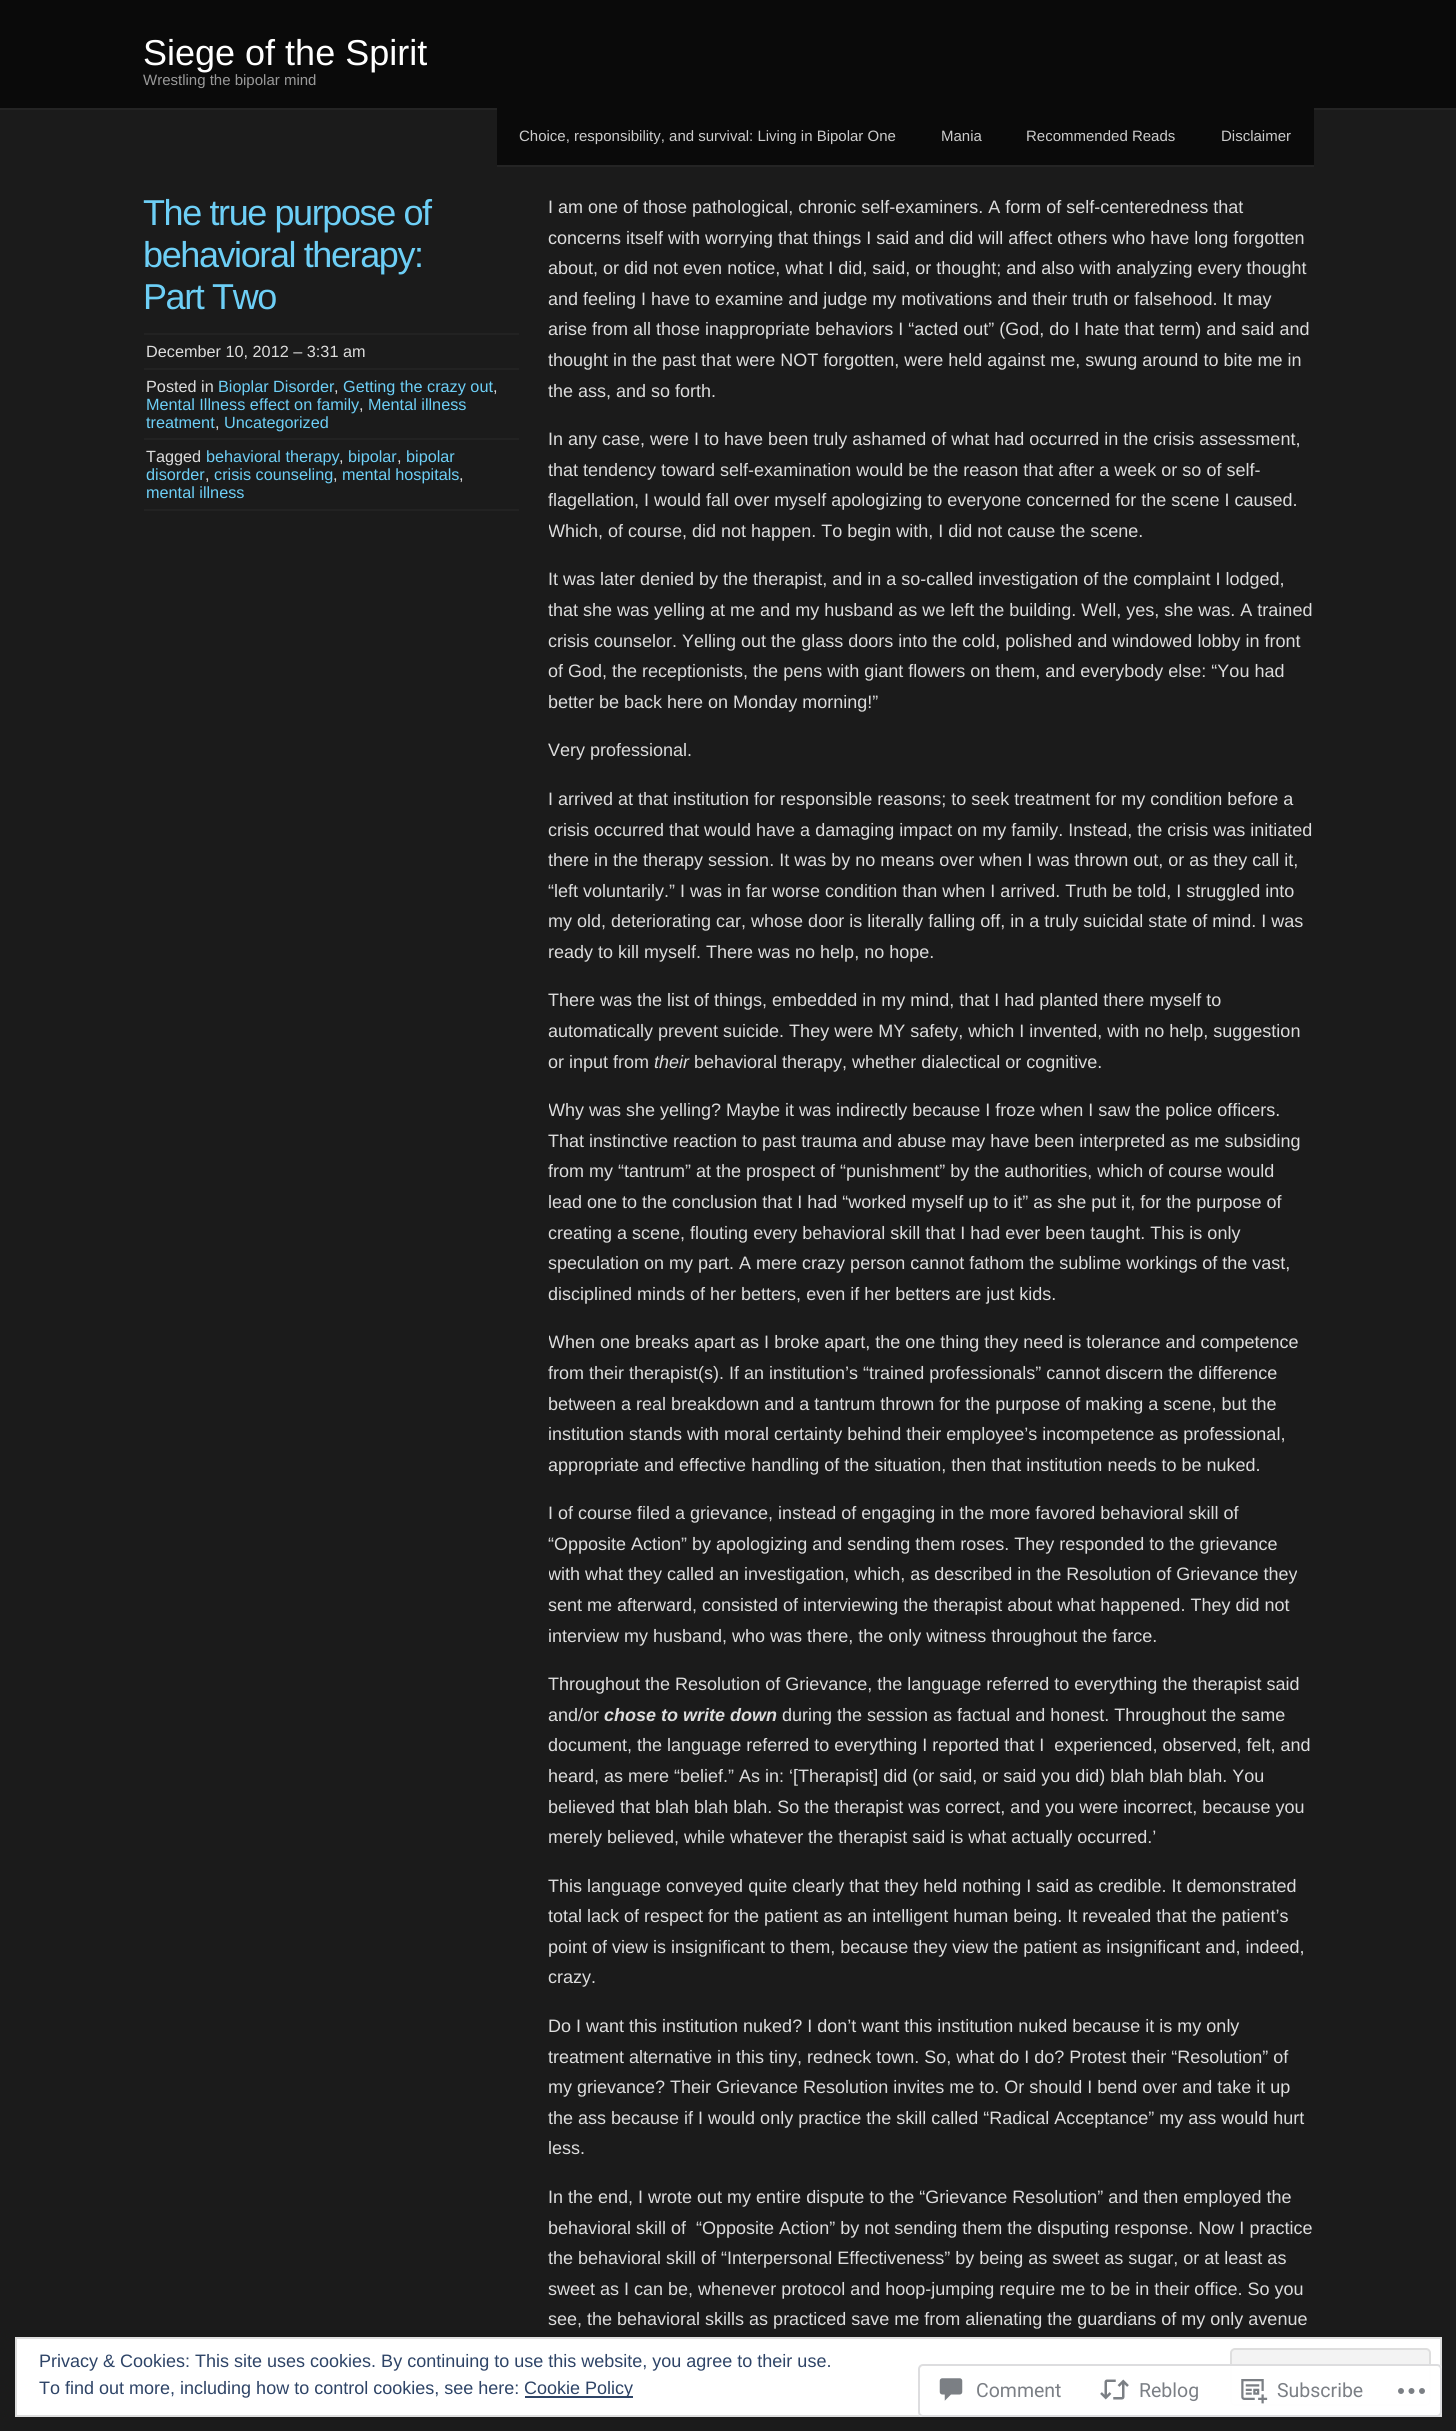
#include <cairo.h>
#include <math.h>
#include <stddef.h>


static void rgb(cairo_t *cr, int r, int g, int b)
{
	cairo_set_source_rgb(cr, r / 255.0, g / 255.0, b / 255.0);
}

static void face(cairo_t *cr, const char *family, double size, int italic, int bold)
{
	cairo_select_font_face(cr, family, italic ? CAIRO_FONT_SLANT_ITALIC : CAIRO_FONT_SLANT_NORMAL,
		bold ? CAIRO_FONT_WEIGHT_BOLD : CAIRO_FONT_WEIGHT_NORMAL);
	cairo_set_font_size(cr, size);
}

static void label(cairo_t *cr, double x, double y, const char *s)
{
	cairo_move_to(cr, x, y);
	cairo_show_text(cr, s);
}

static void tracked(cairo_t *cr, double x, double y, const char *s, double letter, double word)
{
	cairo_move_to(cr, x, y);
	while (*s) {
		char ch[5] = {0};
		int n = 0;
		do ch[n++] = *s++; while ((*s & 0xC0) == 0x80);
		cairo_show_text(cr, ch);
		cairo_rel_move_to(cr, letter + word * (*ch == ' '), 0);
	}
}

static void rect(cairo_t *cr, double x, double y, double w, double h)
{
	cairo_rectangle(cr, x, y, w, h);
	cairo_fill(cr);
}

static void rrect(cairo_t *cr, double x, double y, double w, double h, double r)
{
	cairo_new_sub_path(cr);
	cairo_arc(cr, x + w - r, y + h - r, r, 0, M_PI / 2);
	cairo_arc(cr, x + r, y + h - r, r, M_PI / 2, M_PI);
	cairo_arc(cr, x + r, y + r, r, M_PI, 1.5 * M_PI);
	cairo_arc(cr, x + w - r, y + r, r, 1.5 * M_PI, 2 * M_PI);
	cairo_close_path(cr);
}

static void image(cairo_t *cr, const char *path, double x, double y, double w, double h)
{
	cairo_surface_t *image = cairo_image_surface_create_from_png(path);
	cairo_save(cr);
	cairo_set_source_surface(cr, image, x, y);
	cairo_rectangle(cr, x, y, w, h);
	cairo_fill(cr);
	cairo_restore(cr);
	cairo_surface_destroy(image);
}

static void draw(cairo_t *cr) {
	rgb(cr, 27, 27, 27);
	cairo_paint(cr);
	rgb(cr, 10, 10, 10);
	rect(cr, 0, 0, 1456, 108);
	rgb(cr, 36, 36, 36);
	rect(cr, 0, 108, 1456, 2);
	face(cr, "Liberation Sans", 36, 0, 0);
	rgb(cr, 255, 255, 255);
	label(cr, 143, 65, "Siege of the Spirit");
	face(cr, "Liberation Sans", 15, 0, 0);
	rgb(cr, 153, 153, 153);
	label(cr, 143, 85, "Wrestling the bipolar mind");
	rgb(cr, 10, 10, 10);
	rect(cr, 497, 108, 817, 57);
	rgb(cr, 36, 36, 36);
	rect(cr, 497, 165, 817, 2);
	rgb(cr, 204, 204, 204);
	label(cr, 519, 141, "Choice, responsibility, and survival: Living in Bipolar One");
	label(cr, 941, 141, "Mania");
	label(cr, 1026, 141, "Recommended Reads");
	label(cr, 1221, 141, "Disclaimer");
	face(cr, "Liberation Sans", 36, 0, 0);
	rgb(cr, 109, 207, 246);
	tracked(cr, 143, 225, "The true purpose of", -1.4, 0);
	tracked(cr, 143, 267, "behavioral therapy:", -1.4, 0);
	tracked(cr, 143, 309, "Part Two", -1.4, 0);
	rgb(cr, 34, 34, 34);
	rect(cr, 144, 333, 375, 2);
	rect(cr, 144, 368, 375, 2);
	face(cr, "Liberation Sans", 16.25, 0, 0);
	rgb(cr, 221, 221, 221);
	label(cr, 146, 357, "December 10, 2012 – 3:31 am");
	rgb(cr, 34, 34, 34);
	rect(cr, 144, 438, 375, 2);
	rgb(cr, 221, 221, 221);
	label(cr, 146, 392, "Posted in");
	rgb(cr, 109, 207, 246);
	label(cr, 218, 392, "Bioplar Disorder");
	rgb(cr, 221, 221, 221);
	label(cr, 334, 392, ",");
	rgb(cr, 109, 207, 246);
	label(cr, 343, 392, "Getting the crazy out");
	rgb(cr, 221, 221, 221);
	label(cr, 493, 392, ",");
	rgb(cr, 109, 207, 246);
	label(cr, 146, 410, "Mental Illness effect on family");
	rgb(cr, 221, 221, 221);
	label(cr, 359, 410, ",");
	rgb(cr, 109, 207, 246);
	label(cr, 368, 410, "Mental illness");
	label(cr, 146, 428, "treatment");
	rgb(cr, 221, 221, 221);
	label(cr, 215, 428, ",");
	rgb(cr, 109, 207, 246);
	label(cr, 224, 428, "Uncategorized");
	rgb(cr, 34, 34, 34);
	rect(cr, 144, 509, 375, 2);
	rgb(cr, 221, 221, 221);
	label(cr, 146, 462, "Tagged");
	rgb(cr, 109, 207, 246);
	label(cr, 206, 462, "behavioral therapy");
	rgb(cr, 221, 221, 221);
	label(cr, 339, 462, ",");
	rgb(cr, 109, 207, 246);
	label(cr, 348, 462, "bipolar");
	rgb(cr, 221, 221, 221);
	label(cr, 397, 462, ",");
	rgb(cr, 109, 207, 246);
	label(cr, 406, 462, "bipolar");
	label(cr, 146, 480, "disorder");
	rgb(cr, 221, 221, 221);
	label(cr, 205, 480, ",");
	rgb(cr, 109, 207, 246);
	label(cr, 214, 480, "crisis counseling");
	rgb(cr, 221, 221, 221);
	label(cr, 333, 480, ",");
	rgb(cr, 109, 207, 246);
	label(cr, 342, 480, "mental hospitals");
	rgb(cr, 221, 221, 221);
	label(cr, 459, 480, ",");
	rgb(cr, 109, 207, 246);
	label(cr, 146, 498, "mental illness");
	face(cr, "Liberation Sans", 18, 0, 0);
	rgb(cr, 221, 221, 221);
	label(cr, 548, 213, "I am one of those pathological, chronic self-examiners. A form of self-centeredness that");
	label(cr, 548, 244, "concerns itself with worrying that things I said and did will affect others who have long forgotten");
	label(cr, 548, 274, "about, or did not even notice, what I did, said, or thought; and also with analyzing every thought");
	label(cr, 548, 305, "and feeling I have to examine and judge my motivations and their truth or falsehood. It may");
	label(cr, 548, 335, "arise from all those inappropriate behaviors I “acted out” (God, do I hate that term) and said and");
	label(cr, 548, 366, "thought in the past that were NOT forgotten, were held against me, swung around to bite me in");
	label(cr, 548, 397, "the ass, and so forth.");
	label(cr, 548, 445, "In any case, were I to have been truly ashamed of what had occurred in the crisis assessment,");
	label(cr, 548, 476, "that tendency toward self-examination would be the reason that after a week or so of self-");
	label(cr, 548, 506, "flagellation, I would fall over myself apologizing to everyone concerned for the scene I caused.");
	cairo_save(cr);
	cairo_rectangle(cr, 549, 192, 765, 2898);
	cairo_clip(cr);
	label(cr, 548, 537, "Which, of course, did not happen. To begin with, I did not cause the scene.");
	cairo_restore(cr);
	label(cr, 548, 585, "It was later denied by the therapist, and in a so-called investigation of the complaint I lodged,");
	label(cr, 548, 616, "that she was yelling at me and my husband as we left the building. Well, yes, she was. A trained");
	label(cr, 548, 647, "crisis counselor. Yelling out the glass doors into the cold, polished and windowed lobby in front");
	label(cr, 548, 677, "of God, the receptionists, the pens with giant flowers on them, and everybody else: “You had");
	label(cr, 548, 708, "better be back here on Monday morning!”");
	label(cr, 548, 756, "Very professional.");
	label(cr, 548, 805, "I arrived at that institution for responsible reasons; to seek treatment for my condition before a");
	label(cr, 548, 836, "crisis occurred that would have a damaging impact on my family. Instead, the crisis was initiated");
	label(cr, 548, 866, "there in the therapy session. It was by no means over when I was thrown out, or as they call it,");
	label(cr, 548, 897, "“left voluntarily.” I was in far worse condition than when I arrived. Truth be told, I struggled into");
	label(cr, 548, 927, "my old, deteriorating car, whose door is literally falling off, in a truly suicidal state of mind. I was");
	label(cr, 548, 958, "ready to kill myself. There was no help, no hope.");
	label(cr, 548, 1006, "There was the list of things, embedded in my mind, that I had planted there myself to");
	label(cr, 548, 1037, "automatically prevent suicide. They were MY safety, which I invented, with no help, suggestion");
	label(cr, 548, 1068, "or input from");
	face(cr, "Liberation Sans", 18, 1, 0);
	label(cr, 654, 1068, "their");
	face(cr, "Liberation Sans", 18, 0, 0);
	label(cr, 694, 1068, "behavioral therapy, whether dialectical or cognitive.");
	cairo_save(cr);
	cairo_rectangle(cr, 549, 192, 765, 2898);
	cairo_clip(cr);
	label(cr, 548, 1116, "Why was she yelling? Maybe it was indirectly because I froze when I saw the police officers.");
	cairo_restore(cr);
	label(cr, 548, 1147, "That instinctive reaction to past trauma and abuse may have been interpreted as me subsiding");
	label(cr, 548, 1177, "from my “tantrum” at the prospect of “punishment” by the authorities, which of course would");
	label(cr, 548, 1208, "lead one to the conclusion that I had “worked myself up to it” as she put it, for the purpose of");
	label(cr, 548, 1239, "creating a scene, flouting every behavioral skill that I had ever been taught. This is only");
	label(cr, 548, 1269, "speculation on my part. A mere crazy person cannot fathom the sublime workings of the vast,");
	label(cr, 548, 1300, "disciplined minds of her betters, even if her betters are just kids.");
	cairo_save(cr);
	cairo_rectangle(cr, 549, 192, 765, 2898);
	cairo_clip(cr);
	label(cr, 548, 1348, "When one breaks apart as I broke apart, the one thing they need is tolerance and competence");
	cairo_restore(cr);
	label(cr, 548, 1379, "from their therapist(s). If an institution’s “trained professionals” cannot discern the difference");
	label(cr, 548, 1410, "between a real breakdown and a tantrum thrown for the purpose of making a scene, but the");
	label(cr, 548, 1440, "institution stands with moral certainty behind their employee’s incompetence as professional,");
	label(cr, 548, 1471, "appropriate and effective handling of the situation, then that institution needs to be nuked.");
	label(cr, 548, 1519, "I of course filed a grievance, instead of engaging in the more favored behavioral skill of");
	label(cr, 548, 1550, "“Opposite Action” by apologizing and sending them roses. They responded to the grievance");
	cairo_save(cr);
	cairo_rectangle(cr, 549, 192, 765, 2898);
	cairo_clip(cr);
	label(cr, 548, 1580, "with what they called an investigation, which, as described in the Resolution of Grievance they");
	cairo_restore(cr);
	label(cr, 548, 1611, "sent me afterward, consisted of interviewing the therapist about what happened. They did not");
	label(cr, 548, 1642, "interview my husband, who was there, the only witness throughout the farce.");
	label(cr, 548, 1690, "Throughout the Resolution of Grievance, the language referred to everything the therapist said");
	label(cr, 548, 1721, "and/or");
	face(cr, "Liberation Sans", 18, 1, 1);
	label(cr, 604, 1721, "chose to write down");
	face(cr, "Liberation Sans", 18, 0, 0);
	label(cr, 782, 1721, "during the session as factual and honest. Throughout the same");
	label(cr, 548, 1751, "document, the language referred to everything I reported that I  experienced, observed, felt, and");
	label(cr, 548, 1782, "heard, as mere “belief.” As in: ‘[Therapist] did (or said, or said you did) blah blah blah. You");
	label(cr, 548, 1813, "believed that blah blah blah. So the therapist was correct, and you were incorrect, because you");
	label(cr, 548, 1843, "merely believed, while whatever the therapist said is what actually occurred.’");
	label(cr, 548, 1892, "This language conveyed quite clearly that they held nothing I said as credible. It demonstrated");
	label(cr, 548, 1922, "total lack of respect for the patient as an intelligent human being. It revealed that the patient’s");
	label(cr, 548, 1953, "point of view is insignificant to them, because they view the patient as insignificant and, indeed,");
	label(cr, 548, 1983, "crazy.");
	label(cr, 548, 2032, "Do I want this institution nuked? I don’t want this institution nuked because it is my only");
	label(cr, 548, 2063, "treatment alternative in this tiny, redneck town. So, what do I do? Protest their “Resolution” of");
	label(cr, 548, 2093, "my grievance? Their Grievance Resolution invites me to. Or should I bend over and take it up");
	label(cr, 548, 2124, "the ass because if I would only practice the skill called “Radical Acceptance” my ass would hurt");
	label(cr, 548, 2154, "less.");
	label(cr, 548, 2203, "In the end, I wrote out my entire dispute to the “Grievance Resolution” and then employed the");
	label(cr, 548, 2234, "behavioral skill of  “Opposite Action” by not sending them the disputing response. Now I practice");
	label(cr, 548, 2264, "the behavioral skill of “Interpersonal Effectiveness” by being as sweet as sugar, or at least as");
	label(cr, 548, 2295, "sweet as I can be, whenever protocol and hoop-jumping require me to be in their office. So you");
	label(cr, 548, 2325, "see, the behavioral skills as practiced save me from alienating the guardians of my only avenue");
	rgb(cr, 255, 255, 255);
	cairo_rectangle(cr, 16, 2338, 1425, 78);
	cairo_fill_preserve(cr);
	rgb(cr, 222, 222, 222);
	cairo_stroke(cr);
	rgb(cr, 46, 68, 103);
	label(cr, 39, 2367, "Privacy & Cookies: This site uses cookies. By continuing to use this website, you agree to their use.");
	rgb(cr, 243, 243, 243);
	rrect(cr, 1231, 2349, 199, 56, 4);
	cairo_fill_preserve(cr);
	rgb(cr, 222, 222, 222);
	cairo_stroke(cr);
	rgb(cr, 46, 68, 103);
	label(cr, 39, 2394, "To find out more, including how to control cookies, see here:");
	rect(cr, 525, 2396, 108, 2);
	label(cr, 524, 2394, "Cookie Policy");
	cairo_set_source_rgba(cr, 1, 1, 1, 0.98);
	rrect(cr, 918, 2364, 524, 53, 5);
	cairo_fill(cr);
	rrect(cr, 919, 2365, 522, 51, 4);
	cairo_set_source_rgba(cr, 0.863, 0.863, 0.871, 0.98);
	cairo_stroke(cr);
	image(cr, "image0.png", 939, 2378, 24, 23);
	face(cr, "Roboto", 19.5, 0, 0);
	rgb(cr, 123, 127, 133);
	label(cr, 976, 2397, "Comment");
	image(cr, "image1.png", 1100, 2379, 29, 21);
	label(cr, 1139, 2397, "Reblog");
	image(cr, "image2.png", 1241, 2379, 27, 25);
	label(cr, 1277, 2397, "Subscribe");
	image(cr, "image3.png", 1398, 2388, 27, 6);
}

int main(void) {
	cairo_surface_t *surface = cairo_image_surface_create(CAIRO_FORMAT_RGB24, 1456, 2431);
	cairo_t *cr = cairo_create(surface);
	cairo_font_options_t *options = cairo_font_options_create();
	cairo_font_options_set_hint_metrics(options, CAIRO_HINT_METRICS_OFF);
	cairo_font_options_set_hint_style(options, CAIRO_HINT_STYLE_NONE);
	cairo_set_font_options(cr, options);
	cairo_set_miter_limit(cr, 4);
	draw(cr);
	cairo_surface_write_to_png(surface, "render.png");
	cairo_font_options_destroy(options);
	cairo_destroy(cr);
	cairo_surface_destroy(surface);
	return 0;
}
